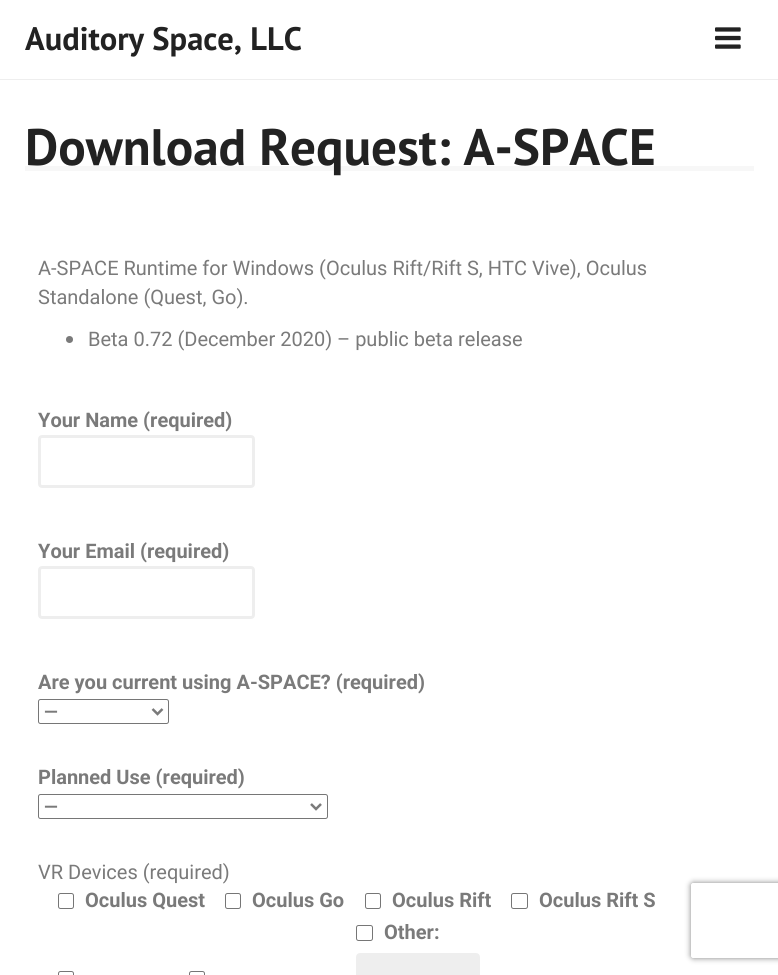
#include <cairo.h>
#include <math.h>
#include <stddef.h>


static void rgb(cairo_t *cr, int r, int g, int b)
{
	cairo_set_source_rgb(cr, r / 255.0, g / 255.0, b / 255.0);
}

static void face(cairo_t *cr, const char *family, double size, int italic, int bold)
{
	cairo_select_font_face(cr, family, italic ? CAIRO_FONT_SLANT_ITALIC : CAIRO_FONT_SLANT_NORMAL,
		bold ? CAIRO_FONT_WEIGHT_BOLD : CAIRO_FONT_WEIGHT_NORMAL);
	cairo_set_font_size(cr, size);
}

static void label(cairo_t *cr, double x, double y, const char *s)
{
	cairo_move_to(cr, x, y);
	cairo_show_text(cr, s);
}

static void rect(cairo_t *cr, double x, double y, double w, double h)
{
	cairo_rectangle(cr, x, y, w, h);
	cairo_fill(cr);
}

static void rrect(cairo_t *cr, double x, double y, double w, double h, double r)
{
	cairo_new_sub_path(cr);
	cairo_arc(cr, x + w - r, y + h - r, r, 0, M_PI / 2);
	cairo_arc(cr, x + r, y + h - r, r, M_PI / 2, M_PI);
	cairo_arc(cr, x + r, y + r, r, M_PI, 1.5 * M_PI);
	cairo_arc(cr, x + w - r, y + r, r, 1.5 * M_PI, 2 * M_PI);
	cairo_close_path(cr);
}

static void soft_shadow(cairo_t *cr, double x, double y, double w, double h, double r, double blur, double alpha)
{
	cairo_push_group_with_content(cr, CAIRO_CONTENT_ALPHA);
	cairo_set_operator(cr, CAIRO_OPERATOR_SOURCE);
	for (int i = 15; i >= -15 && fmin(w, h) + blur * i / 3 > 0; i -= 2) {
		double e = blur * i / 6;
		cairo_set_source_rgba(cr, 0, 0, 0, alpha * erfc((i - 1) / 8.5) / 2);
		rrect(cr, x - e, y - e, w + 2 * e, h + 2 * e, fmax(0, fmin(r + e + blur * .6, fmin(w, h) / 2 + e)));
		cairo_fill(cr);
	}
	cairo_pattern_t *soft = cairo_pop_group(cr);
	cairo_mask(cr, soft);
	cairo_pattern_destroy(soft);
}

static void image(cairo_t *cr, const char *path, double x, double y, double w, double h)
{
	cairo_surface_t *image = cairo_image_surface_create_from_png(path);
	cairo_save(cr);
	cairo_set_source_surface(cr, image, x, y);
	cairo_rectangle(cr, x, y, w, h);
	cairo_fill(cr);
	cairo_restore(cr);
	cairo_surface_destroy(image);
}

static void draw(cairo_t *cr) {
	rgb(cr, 255, 255, 255);
	cairo_paint(cr);
	rgb(cr, 238, 238, 238);
	rect(cr, 0, 79, 778, 1);
	face(cr, "PT Sans", 32.5, 0, 1);
	rgb(cr, 34, 34, 34);
	label(cr, 25, 50, "Auditory Space, LLC");
	image(cr, "image0.png", 715, 27, 26, 22);
	rgb(cr, 247, 247, 247);
	rect(cr, 25, 166, 729, 5);
	face(cr, "PT Sans", 51.25, 0, 1);
	rgb(cr, 34, 34, 34);
	label(cr, 25, 165, "Download Request: A-SPACE");
	face(cr, "Roboto", 20, 0, 0);
	rgb(cr, 122, 122, 122);
	label(cr, 38, 275, "A-SPACE Runtime for Windows (Oculus Rift/Rift S, HTC Vive), Oculus");
	label(cr, 38, 304, "Standalone (Quest, Go).");
	cairo_new_path(cr);
	cairo_arc(cr, 69.5, 339.5, 3.5, 0, 2 * M_PI);
	cairo_fill(cr);
	label(cr, 88, 346, "Beta 0.72 (December 2020) – public beta release");
	face(cr, "Roboto", 20, 0, 1);
	label(cr, 38, 427, "Your Name (required)");
	rrect(cr, 39.5, 436.5, 214, 50, 2.5);
	rgb(cr, 238, 238, 238);
	cairo_set_line_width(cr, 3);
	cairo_stroke(cr);
	rgb(cr, 122, 122, 122);
	label(cr, 38, 558, "Your Email (required)");
	rrect(cr, 39.5, 567.5, 214, 50, 2.5);
	rgb(cr, 238, 238, 238);
	cairo_stroke(cr);
	rgb(cr, 122, 122, 122);
	label(cr, 38, 689, "Are you current using A-SPACE? (required)");
	rrect(cr, 38.5, 699.5, 130, 24, 2);
	rgb(cr, 118, 118, 118);
	cairo_set_line_width(cr, 1);
	cairo_stroke(cr);
	cairo_new_path(cr);
	cairo_move_to(cr, 152.5, 709);
	cairo_line_to(cr, 157.5, 714);
	cairo_line_to(cr, 162.5, 709);
	rgb(cr, 122, 122, 122);
	cairo_set_line_width(cr, 2.5);
	cairo_stroke(cr);
	face(cr, "Roboto", 18, 0, 1);
	label(cr, 44, 718, "—");
	face(cr, "Roboto", 20, 0, 1);
	label(cr, 38, 784, "Planned Use (required)");
	rrect(cr, 38.5, 794.5, 289, 24, 2);
	rgb(cr, 118, 118, 118);
	cairo_set_line_width(cr, 1);
	cairo_stroke(cr);
	cairo_new_path(cr);
	cairo_move_to(cr, 311, 804);
	cairo_line_to(cr, 316, 809);
	cairo_line_to(cr, 321, 804);
	rgb(cr, 122, 122, 122);
	cairo_set_line_width(cr, 2.5);
	cairo_stroke(cr);
	face(cr, "Roboto", 18, 0, 1);
	label(cr, 44, 813, "—");
	face(cr, "Roboto", 20, 0, 0);
	label(cr, 38, 879, "VR Devices (required)");
	rrect(cr, 58.5, 893.5, 15, 15, 2);
	rgb(cr, 118, 118, 118);
	cairo_set_line_width(cr, 1);
	cairo_stroke(cr);
	face(cr, "Roboto", 20, 0, 1);
	rgb(cr, 122, 122, 122);
	label(cr, 85, 907, "Oculus Quest");
	rrect(cr, 225.5, 893.5, 15, 15, 2);
	rgb(cr, 118, 118, 118);
	cairo_stroke(cr);
	rgb(cr, 122, 122, 122);
	label(cr, 252, 907, "Oculus Go");
	rrect(cr, 365.5, 893.5, 15, 15, 2);
	rgb(cr, 118, 118, 118);
	cairo_stroke(cr);
	rgb(cr, 122, 122, 122);
	label(cr, 392, 907, "Oculus Rift");
	rrect(cr, 511.5, 893.5, 16, 15, 2);
	rgb(cr, 118, 118, 118);
	cairo_stroke(cr);
	rgb(cr, 122, 122, 122);
	label(cr, 539, 907, "Oculus Rift S");
	rrect(cr, 356.5, 925.5, 16, 15, 2);
	rgb(cr, 118, 118, 118);
	cairo_stroke(cr);
	rgb(cr, 122, 122, 122);
	label(cr, 384, 939, "Other:");
	rgb(cr, 238, 238, 238);
	rrect(cr, 357.5, 954.5, 121, 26, 2.5);
	cairo_fill_preserve(cr);
	cairo_set_line_width(cr, 3);
	cairo_stroke(cr);
	rrect(cr, 58.5, 971.5, 15, 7, 2);
	rgb(cr, 118, 118, 118);
	cairo_set_line_width(cr, 1);
	cairo_stroke(cr);
	rrect(cr, 189.5, 971.5, 15, 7, 2);
	cairo_stroke(cr);
	cairo_save(cr);
	cairo_set_fill_rule(cr, CAIRO_FILL_RULE_EVEN_ODD);
	cairo_new_path(cr);
	cairo_move_to(cr, 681, 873);
	cairo_line_to(cr, 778, 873);
	cairo_line_to(cr, 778, 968);
	cairo_line_to(cr, 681, 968);
	cairo_close_path(cr);
	cairo_move_to(cr, 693.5, 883);
	cairo_line_to(cr, 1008.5, 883);
	cairo_curve_to(cr, 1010, 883, 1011, 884, 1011, 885.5);
	cairo_line_to(cr, 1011, 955.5);
	cairo_curve_to(cr, 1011, 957, 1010, 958, 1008.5, 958);
	cairo_line_to(cr, 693.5, 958);
	cairo_curve_to(cr, 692, 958, 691, 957, 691, 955.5);
	cairo_line_to(cr, 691, 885.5);
	cairo_curve_to(cr, 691, 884, 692, 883, 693.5, 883);
	cairo_close_path(cr);
	cairo_clip(cr);
	rgb(cr, 128, 128, 128);
	soft_shadow(cr, 691, 883, 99, 75, 2.5, 3, 1);
	cairo_restore(cr);
}

int main(void) {
	cairo_surface_t *surface = cairo_image_surface_create(CAIRO_FORMAT_RGB24, 778, 975);
	cairo_t *cr = cairo_create(surface);
	cairo_font_options_t *options = cairo_font_options_create();
	cairo_font_options_set_hint_metrics(options, CAIRO_HINT_METRICS_OFF);
	cairo_font_options_set_hint_style(options, CAIRO_HINT_STYLE_NONE);
	cairo_set_font_options(cr, options);
	cairo_set_miter_limit(cr, 4);
	draw(cr);
	cairo_surface_write_to_png(surface, "render.png");
	cairo_font_options_destroy(options);
	cairo_destroy(cr);
	cairo_surface_destroy(surface);
	return 0;
}
